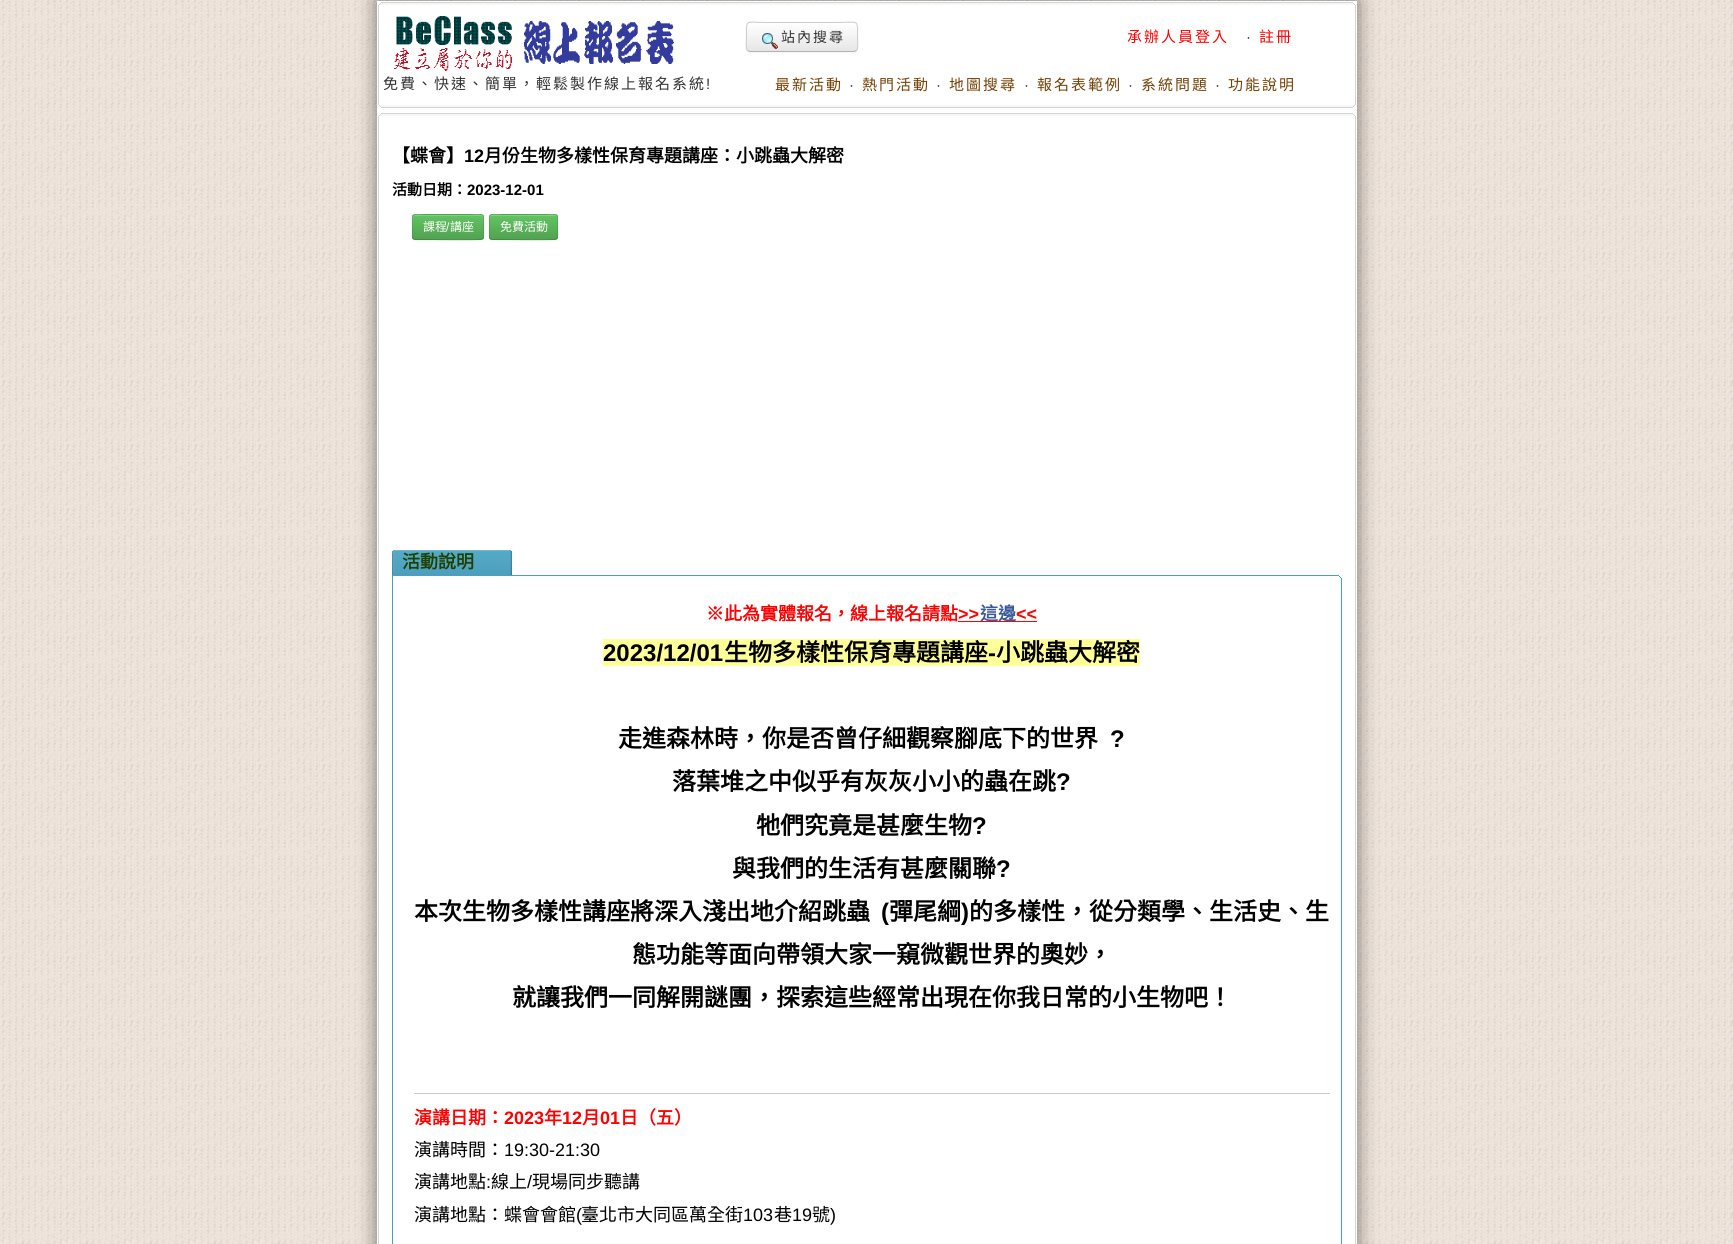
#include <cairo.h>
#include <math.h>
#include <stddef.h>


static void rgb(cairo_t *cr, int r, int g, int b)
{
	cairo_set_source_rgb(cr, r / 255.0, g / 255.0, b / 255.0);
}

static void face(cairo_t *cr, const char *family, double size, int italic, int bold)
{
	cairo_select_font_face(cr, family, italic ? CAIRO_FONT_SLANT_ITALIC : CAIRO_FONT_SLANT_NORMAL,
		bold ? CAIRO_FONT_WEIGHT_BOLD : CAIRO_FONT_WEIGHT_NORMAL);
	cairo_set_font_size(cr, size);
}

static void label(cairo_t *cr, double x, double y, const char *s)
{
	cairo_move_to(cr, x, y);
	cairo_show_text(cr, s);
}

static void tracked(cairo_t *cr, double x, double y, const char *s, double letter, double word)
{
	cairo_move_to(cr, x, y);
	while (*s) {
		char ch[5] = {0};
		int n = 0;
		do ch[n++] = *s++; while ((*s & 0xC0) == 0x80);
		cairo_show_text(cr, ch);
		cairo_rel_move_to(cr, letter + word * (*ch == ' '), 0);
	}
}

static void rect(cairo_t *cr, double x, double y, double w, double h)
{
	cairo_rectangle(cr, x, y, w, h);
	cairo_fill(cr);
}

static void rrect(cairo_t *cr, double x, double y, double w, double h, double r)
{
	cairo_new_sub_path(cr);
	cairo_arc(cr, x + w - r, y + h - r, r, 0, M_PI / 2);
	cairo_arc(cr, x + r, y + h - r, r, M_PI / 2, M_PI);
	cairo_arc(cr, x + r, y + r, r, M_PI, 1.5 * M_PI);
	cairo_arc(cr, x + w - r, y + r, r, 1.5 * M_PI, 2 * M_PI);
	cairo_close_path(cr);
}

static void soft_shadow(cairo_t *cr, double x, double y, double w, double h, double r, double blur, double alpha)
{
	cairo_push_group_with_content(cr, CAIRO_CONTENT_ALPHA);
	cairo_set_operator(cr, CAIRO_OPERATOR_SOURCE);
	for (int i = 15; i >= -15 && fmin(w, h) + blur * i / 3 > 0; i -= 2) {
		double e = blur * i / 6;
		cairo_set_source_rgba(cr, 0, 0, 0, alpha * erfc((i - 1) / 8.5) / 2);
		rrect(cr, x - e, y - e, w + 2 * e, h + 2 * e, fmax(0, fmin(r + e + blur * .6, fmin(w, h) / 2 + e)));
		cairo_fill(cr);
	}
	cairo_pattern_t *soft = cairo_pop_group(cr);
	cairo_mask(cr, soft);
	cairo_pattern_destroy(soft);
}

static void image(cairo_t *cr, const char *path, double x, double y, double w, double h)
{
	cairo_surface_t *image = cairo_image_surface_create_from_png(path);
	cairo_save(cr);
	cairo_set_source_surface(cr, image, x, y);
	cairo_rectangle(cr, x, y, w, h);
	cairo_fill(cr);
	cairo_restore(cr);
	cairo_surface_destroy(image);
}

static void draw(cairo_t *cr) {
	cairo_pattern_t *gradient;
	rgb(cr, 255, 255, 255);
	cairo_paint(cr);
	image(cr, "image0.png", 0, 0, 1733, 1244);
	rgb(cr, 0, 0, 0);
	soft_shadow(cr, 377, 1, 980, 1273, 0, 10, 0.5);
	rgb(cr, 255, 255, 255);
	rect(cr, 377, 1, 980, 1243);
	rgb(cr, 211, 211, 211);
	rect(cr, 381, 2, 972, 1);
	rgb(cr, 247, 247, 247);
	rect(cr, 380, 3, 974, 1);
	rgb(cr, 211, 211, 211);
	rect(cr, 1353, 3, 1, 1);
	rect(cr, 380, 3, 1, 1);
	rgb(cr, 247, 247, 247);
	rect(cr, 379, 4, 976, 1);
	rgb(cr, 211, 211, 211);
	rect(cr, 1354, 4, 1, 1);
	rect(cr, 379, 4, 1, 1);
	rect(cr, 1355, 5, 1, 100);
	rect(cr, 378, 5, 1, 100);
	rgb(cr, 0, 0, 0);
	soft_shadow(cr, 746, 23, 112, 30, 4, 1, 0.05);
	rgb(cr, 245, 245, 245);
	rrect(cr, 746, 22, 112, 30, 4);
	cairo_fill(cr);
	cairo_save(cr);
	rrect(cr, 746, 22, 112, 30, 4);
	cairo_clip(cr);
	gradient = cairo_pattern_create_linear(802, 23, 802, 51);
	cairo_pattern_add_color_stop_rgba(gradient, 0, 1, 1, 1, 1);
	cairo_pattern_add_color_stop_rgba(gradient, 1, 0.902, 0.902, 0.902, 1);
	cairo_set_source(cr, gradient);
	cairo_pattern_destroy(gradient);
	rect(cr, 746, 23, 112, 28);
	cairo_restore(cr);
	cairo_new_path(cr);
	cairo_move_to(cr, 856.5, 50.5);
	cairo_line_to(cr, 854, 51.5);
	cairo_line_to(cr, 749.5, 51.5);
	cairo_line_to(cr, 747.5, 50.5);
	rgb(cr, 179, 179, 179);
	cairo_set_line_width(cr, 1);
	cairo_stroke(cr);
	cairo_new_path(cr);
	cairo_move_to(cr, 747.5, 50.5);
	cairo_curve_to(cr, 745.5, 48.5, 746.5, 40, 746.5, 37);
	cairo_curve_to(cr, 746.5, 18, 745, 22.5, 767.5, 22.5);
	cairo_line_to(cr, 836.5, 22.5);
	cairo_curve_to(cr, 859, 22.5, 857.5, 18, 857.5, 37);
	cairo_curve_to(cr, 857.5, 40, 858.5, 48.5, 856.5, 50.5);
	rgb(cr, 204, 204, 204);
	cairo_stroke(cr);
	image(cr, "image1.png", 762, 33, 16, 16);
	face(cr, "Noto Sans CJK TC", 14, 0, 0);
	rgb(cr, 51, 51, 51);
	tracked(cr, 781, 42, "站內搜尋", 2, 0);
	face(cr, "Noto Sans CJK TC", 15, 0, 0);
	rgb(cr, 255, 0, 0);
	tracked(cr, 1127, 42, "承辦人員登入", 2, 0);
	face(cr, "Liberation Sans", 15, 0, 0);
	rgb(cr, 51, 51, 51);
	tracked(cr, 1246, 42, "·", 2, 0);
	face(cr, "Noto Sans CJK TC", 15, 0, 0);
	rgb(cr, 255, 0, 0);
	tracked(cr, 1259, 42, "註冊", 2, 0);
	image(cr, "image2.png", 394, 16, 280, 55);
	rgb(cr, 51, 51, 51);
	tracked(cr, 383, 89, "免費、快速、簡單，輕鬆製作線上報名系統", 2, 0);
	face(cr, "Liberation Sans", 15, 0, 0);
	tracked(cr, 706, 89, "!", 2, 0);
	face(cr, "Noto Sans CJK TC", 15, 0, 0);
	rgb(cr, 115, 65, 5);
	tracked(cr, 775, 90, "最新活動", 2, 0);
	face(cr, "Liberation Sans", 15, 0, 0);
	rgb(cr, 51, 51, 51);
	tracked(cr, 849, 90, "·", 2, 0);
	face(cr, "Noto Sans CJK TC", 15, 0, 0);
	rgb(cr, 115, 65, 5);
	tracked(cr, 862, 90, "熱門活動", 2, 0);
	face(cr, "Liberation Sans", 15, 0, 0);
	rgb(cr, 51, 51, 51);
	tracked(cr, 936, 90, "·", 2, 0);
	face(cr, "Noto Sans CJK TC", 15, 0, 0);
	rgb(cr, 115, 65, 5);
	tracked(cr, 949, 90, "地圖搜尋", 2, 0);
	face(cr, "Liberation Sans", 15, 0, 0);
	rgb(cr, 51, 51, 51);
	tracked(cr, 1024, 90, "·", 2, 0);
	face(cr, "Noto Sans CJK TC", 15, 0, 0);
	rgb(cr, 115, 65, 5);
	tracked(cr, 1037, 90, "報名表範例", 2, 0);
	face(cr, "Liberation Sans", 15, 0, 0);
	rgb(cr, 51, 51, 51);
	tracked(cr, 1128, 90, "·", 2, 0);
	face(cr, "Noto Sans CJK TC", 15, 0, 0);
	rgb(cr, 115, 65, 5);
	tracked(cr, 1141, 90, "系統問題", 2, 0);
	face(cr, "Liberation Sans", 15, 0, 0);
	rgb(cr, 51, 51, 51);
	tracked(cr, 1215, 90, "·", 2, 0);
	face(cr, "Noto Sans CJK TC", 15, 0, 0);
	rgb(cr, 115, 65, 5);
	tracked(cr, 1228, 90, "功能說明", 2, 0);
	rgb(cr, 247, 247, 247);
	rect(cr, 379, 105, 976, 1);
	rgb(cr, 211, 211, 211);
	rect(cr, 1354, 105, 1, 1);
	rect(cr, 379, 105, 1, 1);
	rgb(cr, 247, 247, 247);
	rect(cr, 380, 106, 974, 1);
	rgb(cr, 211, 211, 211);
	rect(cr, 1353, 106, 1, 1);
	rect(cr, 380, 106, 1, 1);
	rect(cr, 381, 107, 972, 1);
	rect(cr, 381, 113, 972, 1);
	rgb(cr, 247, 247, 247);
	rect(cr, 380, 114, 974, 1);
	rgb(cr, 211, 211, 211);
	rect(cr, 1353, 114, 1, 1);
	rect(cr, 380, 114, 1, 1);
	rgb(cr, 247, 247, 247);
	rect(cr, 379, 115, 976, 1);
	rgb(cr, 211, 211, 211);
	rect(cr, 1354, 115, 1, 1);
	rect(cr, 379, 115, 1, 1);
	rect(cr, 1355, 116, 1, 1128);
	rect(cr, 378, 116, 1, 1128);
	face(cr, "Noto Sans CJK TC", 18, 0, 1);
	rgb(cr, 0, 0, 0);
	label(cr, 392, 162, "【蝶會】");
	face(cr, "Liberation Sans", 18, 0, 1);
	label(cr, 464, 162, "12");
	face(cr, "Noto Sans CJK TC", 18, 0, 1);
	label(cr, 484, 162, "月份生物多樣性保育專題講座：小跳蟲大解密");
	face(cr, "Noto Sans CJK TC", 15, 0, 1);
	label(cr, 392, 195, "活動日期：");
	face(cr, "Liberation Sans", 15, 0, 1);
	label(cr, 467, 195, "2023-12-01");
	rgb(cr, 0, 0, 0);
	soft_shadow(cr, 412, 215, 72, 26, 3, 1, 0.05);
	rgb(cr, 91, 183, 91);
	rrect(cr, 412, 214, 72, 26, 3);
	cairo_fill(cr);
	cairo_save(cr);
	rrect(cr, 412, 214, 72, 26, 3);
	cairo_clip(cr);
	gradient = cairo_pattern_create_linear(448, 215, 448, 239);
	cairo_pattern_add_color_stop_rgba(gradient, 0, 0.384, 0.769, 0.384, 1);
	cairo_pattern_add_color_stop_rgba(gradient, 1, 0.318, 0.639, 0.318, 1);
	cairo_set_source(cr, gradient);
	cairo_pattern_destroy(gradient);
	rect(cr, 412, 215, 72, 24);
	cairo_restore(cr);
	cairo_set_source_rgba(cr, 1, 1, 1, 0.2);
	cairo_new_path(cr);
	cairo_move_to(cr, 415, 216);
	cairo_line_to(cr, 481, 216);
	cairo_curve_to(cr, 482, 216, 483, 217, 483, 218);
	cairo_curve_to(cr, 483, 212, 474, 215, 470, 215);
	cairo_line_to(cr, 426, 215);
	cairo_curve_to(cr, 422, 215, 413, 212, 413, 218);
	cairo_curve_to(cr, 413, 217, 414, 216, 415, 216);
	cairo_close_path(cr);
	cairo_fill(cr);
	cairo_new_path(cr);
	cairo_move_to(cr, 483, 239);
	cairo_line_to(cr, 482.5, 239);
	cairo_curve_to(cr, 480.5, 240.5, 432.5, 239.5, 426, 239.5);
	cairo_line_to(cr, 415, 239.5);
	cairo_line_to(cr, 413, 239);
	cairo_set_source_rgba(cr, 0, 0, 0, 0.25);
	cairo_stroke(cr);
	cairo_new_path(cr);
	cairo_move_to(cr, 413, 239);
	cairo_curve_to(cr, 411.5, 237, 412.5, 232.5, 412.5, 230.5);
	cairo_curve_to(cr, 412.5, 212.5, 408.5, 214.5, 426, 214.5);
	cairo_line_to(cr, 470, 214.5);
	cairo_curve_to(cr, 486, 214.5, 483.5, 212, 483.5, 227);
	cairo_curve_to(cr, 483.5, 229.5, 484.5, 237, 483, 239);
	cairo_set_source_rgba(cr, 0, 0, 0, 0.1);
	cairo_stroke(cr);
	face(cr, "Noto Sans CJK TC", 12, 0, 0);
	rgb(cr, 255, 255, 255);
	label(cr, 423, 231, "課程");
	face(cr, "Liberation Sans", 12, 0, 0);
	label(cr, 446, 231, "/");
	face(cr, "Noto Sans CJK TC", 12, 0, 0);
	label(cr, 450, 231, "講座");
	rgb(cr, 0, 0, 0);
	soft_shadow(cr, 489, 215, 69, 26, 3, 1, 0.05);
	rgb(cr, 91, 183, 91);
	rrect(cr, 489, 214, 69, 26, 3);
	cairo_fill(cr);
	cairo_save(cr);
	rrect(cr, 489, 214, 69, 26, 3);
	cairo_clip(cr);
	gradient = cairo_pattern_create_linear(524, 215, 524, 239);
	cairo_pattern_add_color_stop_rgba(gradient, 0, 0.384, 0.769, 0.384, 1);
	cairo_pattern_add_color_stop_rgba(gradient, 1, 0.318, 0.639, 0.318, 1);
	cairo_set_source(cr, gradient);
	cairo_pattern_destroy(gradient);
	rect(cr, 489, 215, 69, 24);
	cairo_restore(cr);
	cairo_set_source_rgba(cr, 1, 1, 1, 0.2);
	cairo_new_path(cr);
	cairo_move_to(cr, 492, 216);
	cairo_line_to(cr, 556, 216);
	cairo_line_to(cr, 557, 218);
	cairo_curve_to(cr, 557, 212, 548, 215, 544, 215);
	cairo_line_to(cr, 502, 215);
	cairo_curve_to(cr, 499, 215, 490, 212, 490, 218);
	cairo_curve_to(cr, 490, 217, 491, 216, 492, 216);
	cairo_close_path(cr);
	cairo_fill(cr);
	cairo_new_path(cr);
	cairo_move_to(cr, 557, 239);
	cairo_line_to(cr, 556.5, 239);
	cairo_curve_to(cr, 554.5, 240.5, 508.5, 239.5, 502.5, 239.5);
	cairo_line_to(cr, 492, 239.5);
	cairo_line_to(cr, 490, 239);
	cairo_set_source_rgba(cr, 0, 0, 0, 0.25);
	cairo_stroke(cr);
	cairo_new_path(cr);
	cairo_move_to(cr, 490, 239);
	cairo_curve_to(cr, 488.5, 237, 489.5, 229.5, 489.5, 227);
	cairo_curve_to(cr, 489.5, 212, 487, 214.5, 502.5, 214.5);
	cairo_line_to(cr, 544.5, 214.5);
	cairo_curve_to(cr, 560, 214.5, 557.5, 212, 557.5, 227);
	cairo_curve_to(cr, 557.5, 229.5, 558.5, 237, 557, 239);
	cairo_set_source_rgba(cr, 0, 0, 0, 0.1);
	cairo_stroke(cr);
	rgb(cr, 255, 255, 255);
	label(cr, 500, 231, "免費活動");
	image(cr, "image3.png", 395, 550, 117, 25);
	image(cr, "image4.png", 392, 550, 3, 25);
	face(cr, "Noto Sans CJK TC", 18, 0, 1);
	rgb(cr, 32, 64, 0);
	label(cr, 402, 568, "活動說明");
	rgb(cr, 77, 159, 190);
	rect(cr, 392, 575, 947, 1);
	rect(cr, 1339, 576, 1, 1);
	rect(cr, 392, 576, 1, 2);
	rect(cr, 1340, 577, 1, 1);
	rect(cr, 1341, 578, 1, 666);
	rect(cr, 392, 578, 1, 666);
	rgb(cr, 255, 0, 0);
	label(cr, 706, 620, "※此為實體報名，線上報名請點");
	face(cr, "Liberation Sans", 18, 0, 1);
	label(cr, 958, 620, ">>");
	rect(cr, 958, 621, 79, 1);
	face(cr, "Noto Sans CJK TC", 18, 0, 1);
	rgb(cr, 59, 89, 152);
	label(cr, 980, 620, "這邊");
	face(cr, "Liberation Sans", 18, 0, 1);
	rgb(cr, 255, 0, 0);
	label(cr, 1016, 620, "<<");
	rgb(cr, 255, 255, 153);
	rect(cr, 603, 639, 537, 27);
	face(cr, "Liberation Sans", 24, 0, 1);
	rgb(cr, 0, 0, 0);
	label(cr, 603, 661, "2023/12/01");
	face(cr, "Noto Sans CJK TC", 24, 0, 1);
	label(cr, 724, 661, "生物多樣性保育專題講座");
	face(cr, "Liberation Sans", 24, 0, 1);
	label(cr, 988, 661, "-");
	face(cr, "Noto Sans CJK TC", 24, 0, 1);
	label(cr, 996, 661, "小跳蟲大解密");
	label(cr, 618, 747, "走進森林時，你是否曾仔細觀察腳底下的世界");
	face(cr, "Liberation Sans", 24, 0, 1);
	label(cr, 1110, 747, "?");
	face(cr, "Noto Sans CJK TC", 24, 0, 1);
	label(cr, 672, 790, "落葉堆之中似乎有灰灰小小的蟲在跳");
	face(cr, "Liberation Sans", 24, 0, 1);
	label(cr, 1056, 790, "?");
	face(cr, "Noto Sans CJK TC", 24, 0, 1);
	label(cr, 756, 834, "牠們究竟是甚麼生物");
	face(cr, "Liberation Sans", 24, 0, 1);
	label(cr, 972, 834, "?");
	face(cr, "Noto Sans CJK TC", 24, 0, 1);
	label(cr, 732, 877, "與我們的生活有甚麼關聯");
	face(cr, "Liberation Sans", 24, 0, 1);
	label(cr, 996, 877, "?");
	face(cr, "Noto Sans CJK TC", 24, 0, 1);
	label(cr, 414, 920, "本次生物多樣性講座將深入淺出地介紹跳蟲");
	face(cr, "Liberation Sans", 24, 0, 1);
	label(cr, 881, 920, "(");
	face(cr, "Noto Sans CJK TC", 24, 0, 1);
	label(cr, 889, 920, "彈尾綱");
	face(cr, "Liberation Sans", 24, 0, 1);
	label(cr, 961, 920, ")");
	face(cr, "Noto Sans CJK TC", 24, 0, 1);
	label(cr, 969, 920, "的多樣性，從分類學、生活史、生");
	label(cr, 632, 963, "態功能等面向帶領大家一窺微觀世界的奧妙，");
	label(cr, 512, 1006, "就讓我們一同解開謎團，探索這些經常出現在你我日常的小生物吧！");
	rgb(cr, 204, 204, 204);
	rect(cr, 414, 1093, 916, 1);
	face(cr, "Noto Sans CJK TC", 18, 0, 1);
	rgb(cr, 255, 0, 0);
	label(cr, 414, 1124, "演講日期：");
	face(cr, "Liberation Sans", 18, 0, 1);
	label(cr, 504, 1124, "2023");
	face(cr, "Noto Sans CJK TC", 18, 0, 1);
	label(cr, 544, 1124, "年");
	face(cr, "Liberation Sans", 18, 0, 1);
	label(cr, 562, 1124, "12");
	face(cr, "Noto Sans CJK TC", 18, 0, 1);
	label(cr, 582, 1124, "月");
	face(cr, "Liberation Sans", 18, 0, 1);
	label(cr, 600, 1124, "01");
	face(cr, "Noto Sans CJK TC", 18, 0, 1);
	label(cr, 620, 1124, "日（五）");
	face(cr, "Noto Sans CJK TC", 18, 0, 0);
	rgb(cr, 0, 0, 0);
	label(cr, 414, 1156, "演講時間：");
	face(cr, "Liberation Sans", 18, 0, 0);
	label(cr, 504, 1156, "19:30-21:30");
	face(cr, "Noto Sans CJK TC", 18, 0, 0);
	label(cr, 414, 1188, "演講地點");
	face(cr, "Liberation Sans", 18, 0, 0);
	label(cr, 486, 1188, ":");
	face(cr, "Noto Sans CJK TC", 18, 0, 0);
	label(cr, 491, 1188, "線上");
	face(cr, "Liberation Sans", 18, 0, 0);
	label(cr, 527, 1188, "/");
	face(cr, "Noto Sans CJK TC", 18, 0, 0);
	label(cr, 532, 1188, "現場同步聽講");
	label(cr, 414, 1221, "演講地點：蝶會會館");
	face(cr, "Liberation Sans", 18, 0, 0);
	label(cr, 576, 1221, "(");
	face(cr, "Noto Sans CJK TC", 18, 0, 0);
	label(cr, 581, 1221, "臺北市大同區萬全街");
	face(cr, "Liberation Sans", 18, 0, 0);
	label(cr, 743, 1221, "103");
	face(cr, "Noto Sans CJK TC", 18, 0, 0);
	label(cr, 774, 1221, "巷");
	face(cr, "Liberation Sans", 18, 0, 0);
	label(cr, 792, 1221, "19");
	face(cr, "Noto Sans CJK TC", 18, 0, 0);
	label(cr, 812, 1221, "號");
	face(cr, "Liberation Sans", 18, 0, 0);
	label(cr, 830, 1221, ")");
}

int main(void) {
	cairo_surface_t *surface = cairo_image_surface_create(CAIRO_FORMAT_RGB24, 1733, 1244);
	cairo_t *cr = cairo_create(surface);
	cairo_font_options_t *options = cairo_font_options_create();
	cairo_font_options_set_hint_metrics(options, CAIRO_HINT_METRICS_OFF);
	cairo_font_options_set_hint_style(options, CAIRO_HINT_STYLE_NONE);
	cairo_set_font_options(cr, options);
	cairo_set_miter_limit(cr, 4);
	draw(cr);
	cairo_surface_write_to_png(surface, "render.png");
	cairo_font_options_destroy(options);
	cairo_destroy(cr);
	cairo_surface_destroy(surface);
	return 0;
}
